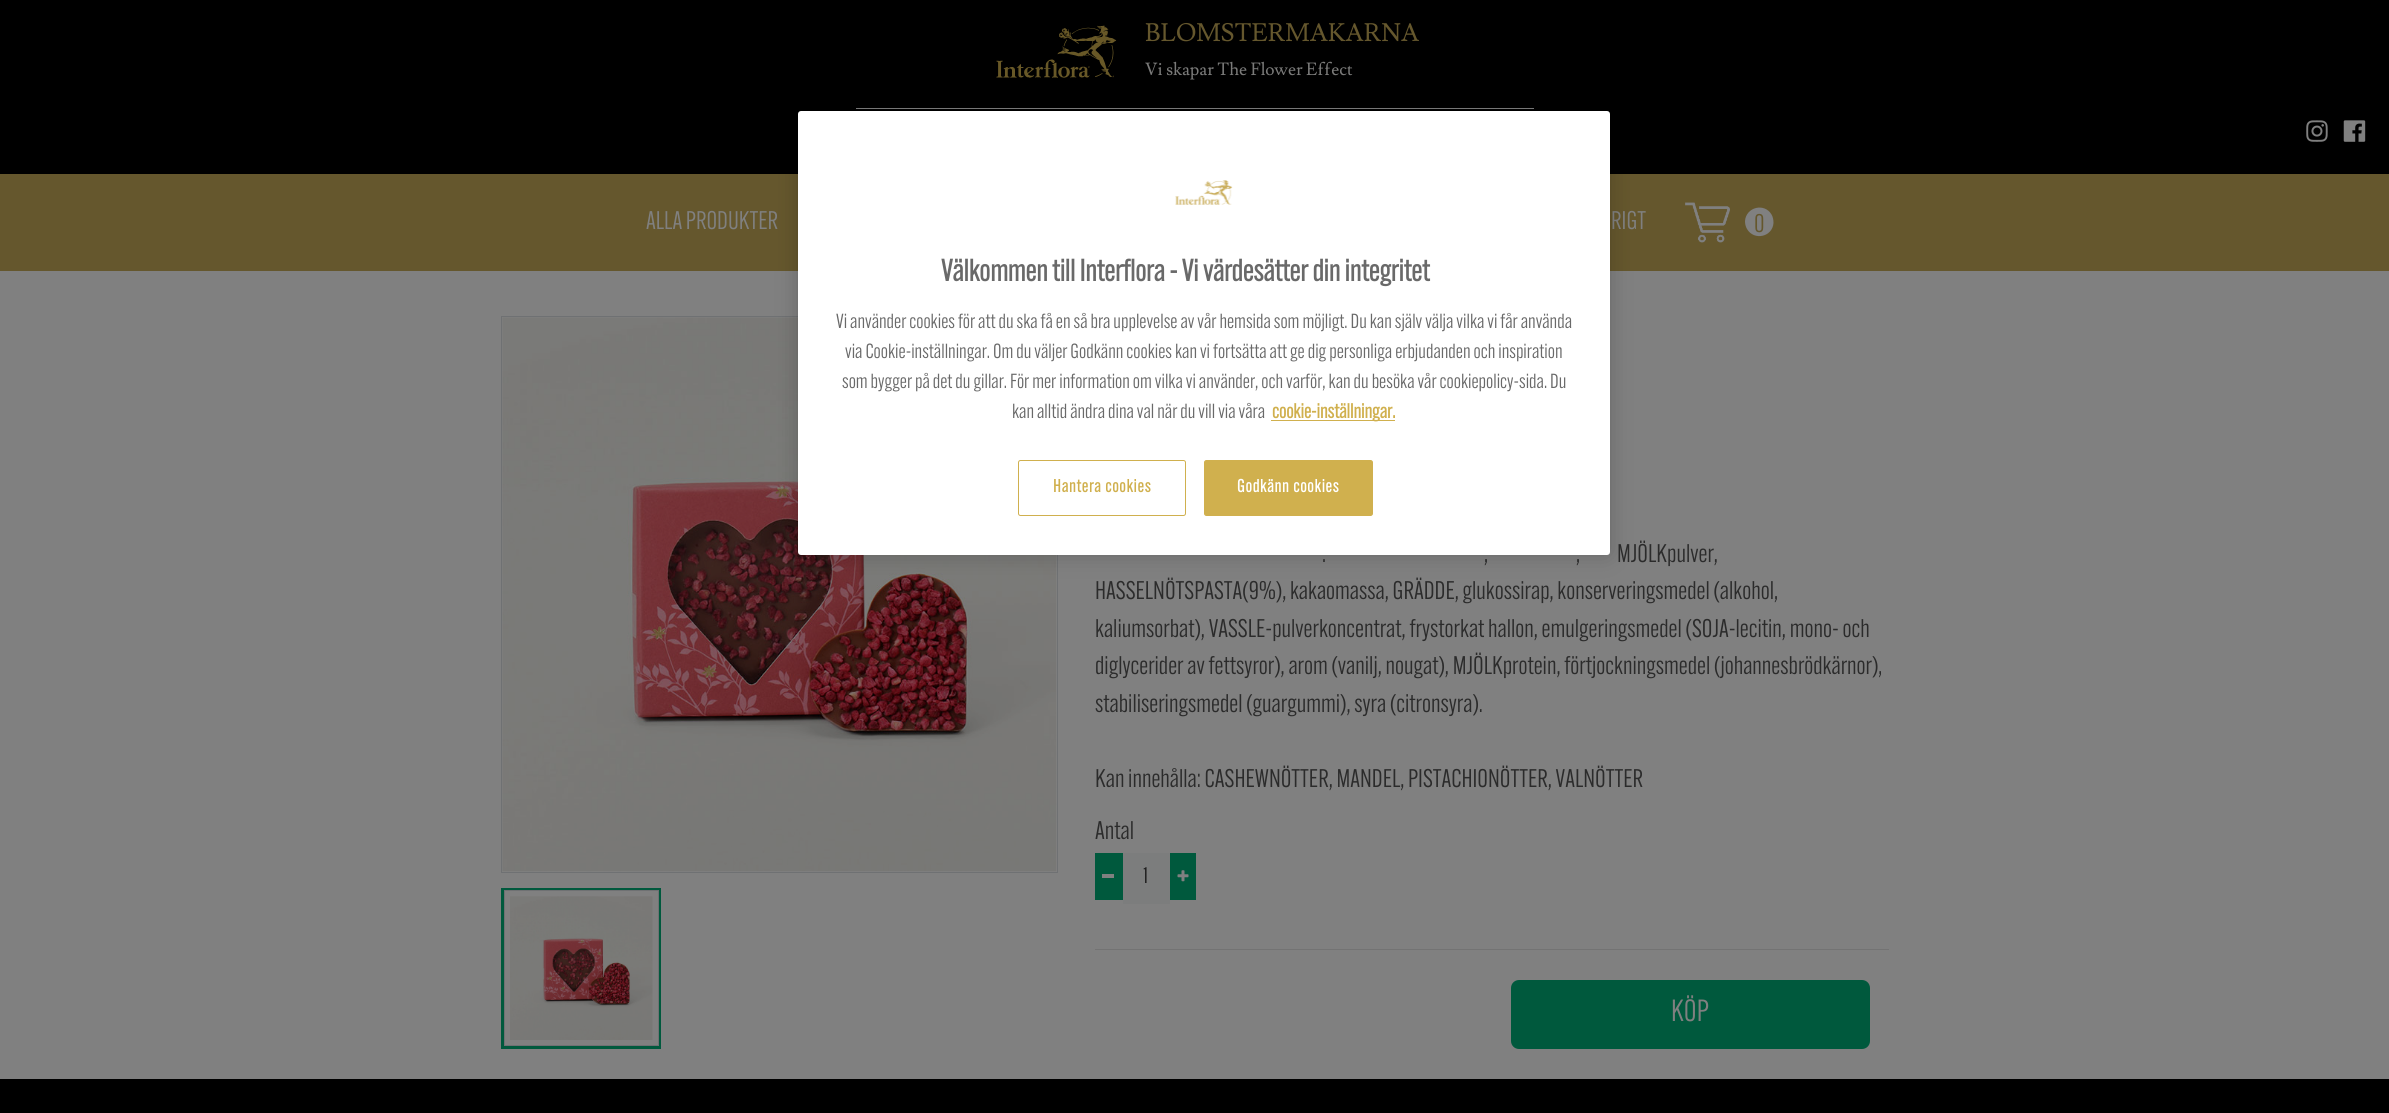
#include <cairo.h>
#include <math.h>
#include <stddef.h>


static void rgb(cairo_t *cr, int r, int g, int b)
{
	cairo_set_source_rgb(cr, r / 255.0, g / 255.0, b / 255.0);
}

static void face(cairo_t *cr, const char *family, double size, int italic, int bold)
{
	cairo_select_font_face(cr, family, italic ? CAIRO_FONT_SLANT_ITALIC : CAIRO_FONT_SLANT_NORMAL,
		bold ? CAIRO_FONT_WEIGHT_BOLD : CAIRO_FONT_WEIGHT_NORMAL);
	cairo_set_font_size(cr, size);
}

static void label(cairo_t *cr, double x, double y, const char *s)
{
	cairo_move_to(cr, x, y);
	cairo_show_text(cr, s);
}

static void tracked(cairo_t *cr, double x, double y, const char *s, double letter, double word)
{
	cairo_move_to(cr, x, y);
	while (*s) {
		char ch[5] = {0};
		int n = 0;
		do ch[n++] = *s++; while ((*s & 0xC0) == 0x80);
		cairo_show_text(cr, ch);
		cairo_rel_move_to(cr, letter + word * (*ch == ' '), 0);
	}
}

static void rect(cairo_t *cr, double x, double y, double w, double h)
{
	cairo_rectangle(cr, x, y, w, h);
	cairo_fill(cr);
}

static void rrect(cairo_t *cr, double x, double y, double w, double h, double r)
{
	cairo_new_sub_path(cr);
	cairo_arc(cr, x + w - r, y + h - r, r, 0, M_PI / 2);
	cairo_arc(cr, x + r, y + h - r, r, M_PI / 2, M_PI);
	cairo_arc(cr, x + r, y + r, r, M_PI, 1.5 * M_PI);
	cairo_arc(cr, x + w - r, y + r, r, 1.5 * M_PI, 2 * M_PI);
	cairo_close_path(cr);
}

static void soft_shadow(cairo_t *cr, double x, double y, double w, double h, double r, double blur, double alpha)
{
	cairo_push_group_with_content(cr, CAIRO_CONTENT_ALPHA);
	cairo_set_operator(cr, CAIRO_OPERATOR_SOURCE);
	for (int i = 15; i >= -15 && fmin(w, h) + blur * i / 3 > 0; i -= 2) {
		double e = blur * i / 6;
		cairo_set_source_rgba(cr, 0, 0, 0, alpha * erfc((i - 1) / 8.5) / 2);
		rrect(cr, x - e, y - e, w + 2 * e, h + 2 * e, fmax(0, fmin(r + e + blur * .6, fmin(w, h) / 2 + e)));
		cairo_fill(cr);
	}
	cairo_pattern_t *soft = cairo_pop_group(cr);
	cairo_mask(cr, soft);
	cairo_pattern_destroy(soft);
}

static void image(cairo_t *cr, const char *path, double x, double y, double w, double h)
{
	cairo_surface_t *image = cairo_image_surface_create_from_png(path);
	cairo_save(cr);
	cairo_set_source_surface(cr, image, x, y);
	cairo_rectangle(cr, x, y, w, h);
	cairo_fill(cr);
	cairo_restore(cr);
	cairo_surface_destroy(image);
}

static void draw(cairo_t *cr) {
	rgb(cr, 128, 128, 128);
	cairo_paint(cr);
	rgb(cr, 0, 0, 0);
	rect(cr, 0, 0, 2389, 174);
	image(cr, "image0.png", 996, 25, 121, 53);
	face(cr, "Lusitana", 25, 0, 0);
	rgb(cr, 101, 87, 45);
	label(cr, 1145, 41, "BLOMSTERMAKARNA");
	face(cr, "Lusitana", 17.5, 0, 0);
	rgb(cr, 122, 122, 121);
	label(cr, 1145, 75, "Vi skapar The Flower Effect");
	rgb(cr, 128, 128, 128);
	rect(cr, 856, 108, 678, 1);
	image(cr, "image1.png", 2306, 120, 22, 22);
	image(cr, "image2.png", 2343, 120, 23, 22);
	rgb(cr, 101, 87, 45);
	rect(cr, 0, 174, 2389, 97);
	face(cr, "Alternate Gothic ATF", 25, 0, 0);
	rgb(cr, 128, 128, 128);
	label(cr, 646, 229, "ALLA PRODUKTER");
	label(cr, 1611, 229, "RIGT");
	image(cr, "image3.png", 1685, 202, 45, 41);
	cairo_new_path(cr);
	cairo_move_to(cr, 1771.5, 214.5);
	cairo_curve_to(cr, 1773, 217, 1773.5, 220, 1773.5, 223);
	cairo_curve_to(cr, 1772.5, 237, 1754, 241, 1747, 229);
	cairo_curve_to(cr, 1745.5, 226.5, 1745, 223.5, 1745, 221);
	cairo_curve_to(cr, 1746, 207, 1764.5, 202.5, 1771.5, 214.5);
	cairo_close_path(cr);
	cairo_fill(cr);
	rgb(cr, 101, 87, 45);
	label(cr, 1754, 232, "0");
	cairo_rectangle(cr, 501.5, 316.5, 556, 556);
	rgb(cr, 111, 113, 115);
	cairo_set_line_width(cr, 1);
	cairo_stroke(cr);
	image(cr, "image4.png", 502, 317, 555, 555);
	cairo_rectangle(cr, 502.5, 889.5, 157, 158);
	rgb(cr, 0, 89, 61);
	cairo_set_line_width(cr, 3);
	cairo_stroke(cr);
	cairo_rectangle(cr, 504.5, 890.5, 154, 155);
	rgb(cr, 111, 113, 115);
	cairo_set_line_width(cr, 1);
	cairo_stroke(cr);
	image(cr, "image5.png", 510, 896, 143, 144);
	rgb(cr, 43, 43, 43);
	label(cr, 1322, 562, ".");
	label(cr, 1484, 562, ",");
	label(cr, 1576, 562, ",");
	label(cr, 1617, 562, "MJÖLKpulver,");
	label(cr, 1095, 599, "HASSELNÖTSPASTA(9%), kakaomassa, GRÄDDE, glukossirap, konserveringsmedel (alkohol,");
	label(cr, 1095, 637, "kaliumsorbat), VASSLE-pulverkoncentrat, frystorkat hallon, emulgeringsmedel (SOJA-lecitin, mono- och");
	label(cr, 1095, 674, "diglycerider av fettsyror), arom (vanilj, nougat), MJÖLKprotein, förtjockningsmedel (johannesbrödkärnor),");
	label(cr, 1095, 712, "stabiliseringsmedel (guargummi), syra (citronsyra).");
	label(cr, 1095, 787, "Kan innehålla: CASHEWNÖTTER, MANDEL, PISTACHIONÖTTER, VALNÖTTER");
	label(cr, 1095, 839, "Antal");
	rgb(cr, 0, 89, 61);
	rect(cr, 1095, 853, 28, 47);
	rgb(cr, 128, 128, 128);
	rect(cr, 1102, 874, 12, 4);
	rgb(cr, 124, 125, 125);
	rect(cr, 1123, 853, 47, 51);
	face(cr, "Alternate Gothic ATF", 22, 0, 0);
	rgb(cr, 31, 31, 31);
	label(cr, 1143, 883, "1");
	rgb(cr, 0, 89, 61);
	rect(cr, 1170, 853, 26, 47);
	image(cr, "image6.png", 1177, 870, 12, 12);
	rgb(cr, 115, 115, 115);
	rect(cr, 1095, 949, 794, 1);
	rgb(cr, 0, 89, 61);
	rrect(cr, 1511, 980, 359, 69, 8);
	cairo_fill(cr);
	face(cr, "Alternate Gothic ATF", 30, 0, 0);
	rgb(cr, 128, 128, 128);
	label(cr, 1671, 1021, "KÖP");
	rgb(cr, 0, 0, 0);
	soft_shadow(cr, 798, 111, 812, 444, 3, 11, 0.2);
	rgb(cr, 255, 255, 255);
	rrect(cr, 798, 111, 812, 444, 3);
	cairo_fill(cr);
	image(cr, "image7.png", 1175, 180, 58, 25);
	face(cr, "Alternate Gothic ATF", 30, 0, 1);
	rgb(cr, 105, 105, 105);
	label(cr, 941, 281, "Välkommen till Interflora - Vi värdesätter din integritet");
	face(cr, "Alternate Gothic ATF", 20, 0, 0);
	label(cr, 836, 328, "Vi använder cookies för att du ska få en så bra upplevelse av vår hemsida som möjligt. Du kan själv välja vilka vi får använda");
	label(cr, 845, 358, "via Cookie-inställningar. Om du väljer Godkänn cookies kan vi fortsätta att ge dig personliga erbjudanden och inspiration");
	label(cr, 842, 388, "som bygger på det du gillar. För mer information om vilka vi använder, och varför, kan du besöka vår cookiepolicy-sida. Du");
	label(cr, 1012, 418, "kan alltid ändra dina val när du vill via våra");
	rgb(cr, 208, 176, 78);
	rect(cr, 1271, 420, 124, 1);
	face(cr, "Alternate Gothic ATF", 20, 0, 1);
	label(cr, 1272, 418, "cookie-inställningar.");
	rrect(cr, 1018.5, 460.5, 167, 55, 2);
	cairo_stroke(cr);
	face(cr, "Alternate Gothic ATF", 17.5, 0, 1);
	tracked(cr, 1053, 492, "Hantera cookies", 0.9, 0);
	rrect(cr, 1204.5, 460.5, 168, 55, 2);
	cairo_fill_preserve(cr);
	cairo_stroke(cr);
	rgb(cr, 255, 255, 255);
	tracked(cr, 1237, 492, "Godkänn cookies", 0.9, 0);
	rgb(cr, 0, 0, 0);
	rect(cr, 0, 1079, 2389, 34);
}

int main(void) {
	cairo_surface_t *surface = cairo_image_surface_create(CAIRO_FORMAT_RGB24, 2389, 1113);
	cairo_t *cr = cairo_create(surface);
	cairo_font_options_t *options = cairo_font_options_create();
	cairo_font_options_set_hint_metrics(options, CAIRO_HINT_METRICS_OFF);
	cairo_font_options_set_hint_style(options, CAIRO_HINT_STYLE_NONE);
	cairo_set_font_options(cr, options);
	cairo_set_miter_limit(cr, 4);
	draw(cr);
	cairo_surface_write_to_png(surface, "render.png");
	cairo_font_options_destroy(options);
	cairo_destroy(cr);
	cairo_surface_destroy(surface);
	return 0;
}
